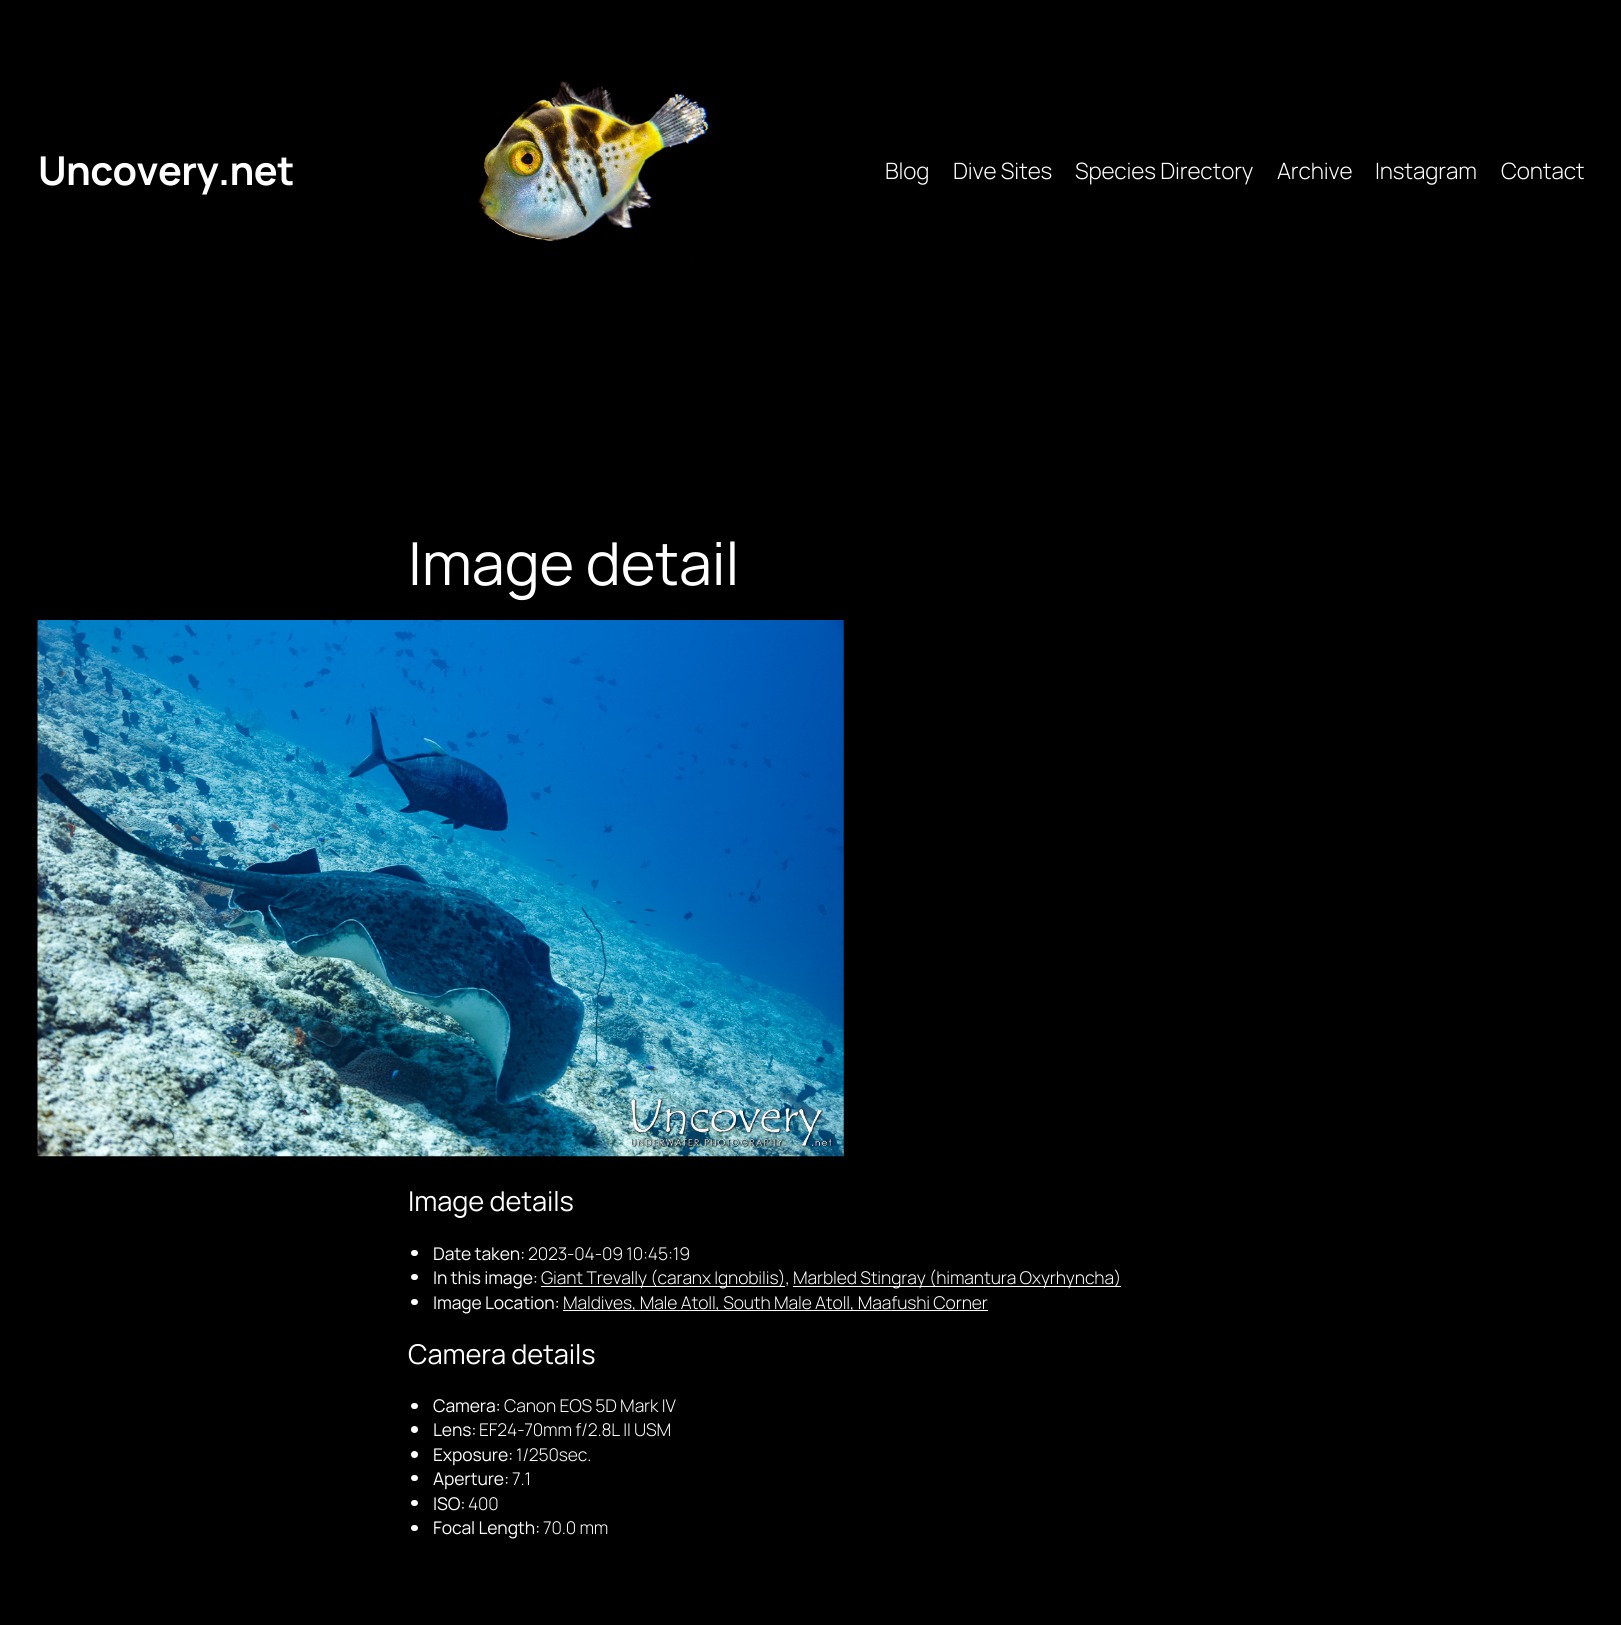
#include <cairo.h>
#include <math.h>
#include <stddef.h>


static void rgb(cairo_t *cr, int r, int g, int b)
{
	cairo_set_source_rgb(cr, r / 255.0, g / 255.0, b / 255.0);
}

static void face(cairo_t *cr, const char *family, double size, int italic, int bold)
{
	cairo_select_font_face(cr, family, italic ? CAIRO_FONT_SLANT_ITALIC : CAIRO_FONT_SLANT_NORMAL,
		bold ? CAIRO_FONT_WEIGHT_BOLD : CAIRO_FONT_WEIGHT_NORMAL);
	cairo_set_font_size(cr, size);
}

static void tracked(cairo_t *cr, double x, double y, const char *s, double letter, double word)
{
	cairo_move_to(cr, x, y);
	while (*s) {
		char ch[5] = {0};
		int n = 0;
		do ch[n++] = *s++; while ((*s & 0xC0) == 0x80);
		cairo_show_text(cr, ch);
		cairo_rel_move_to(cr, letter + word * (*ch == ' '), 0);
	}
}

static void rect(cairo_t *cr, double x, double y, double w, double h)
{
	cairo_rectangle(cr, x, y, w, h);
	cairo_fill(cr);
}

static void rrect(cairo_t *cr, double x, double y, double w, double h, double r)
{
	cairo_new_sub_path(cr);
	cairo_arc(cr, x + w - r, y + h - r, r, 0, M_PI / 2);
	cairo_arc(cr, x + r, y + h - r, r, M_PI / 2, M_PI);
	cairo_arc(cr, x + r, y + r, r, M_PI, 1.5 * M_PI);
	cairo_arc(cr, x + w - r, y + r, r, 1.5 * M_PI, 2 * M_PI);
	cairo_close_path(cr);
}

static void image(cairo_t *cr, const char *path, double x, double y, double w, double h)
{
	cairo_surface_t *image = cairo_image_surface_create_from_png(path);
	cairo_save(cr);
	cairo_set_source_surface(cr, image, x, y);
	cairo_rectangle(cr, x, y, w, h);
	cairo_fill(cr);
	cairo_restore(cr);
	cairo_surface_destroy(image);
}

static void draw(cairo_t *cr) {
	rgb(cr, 0, 0, 0);
	cairo_paint(cr);
	face(cr, "Manrope", 39.75, 0, 1);
	rgb(cr, 255, 255, 255);
	tracked(cr, 38, 185, "Uncovery.net", -0.6, 0);
	image(cr, "image0.png", 478, 81, 234, 177);
	face(cr, "Manrope Light", 22.5, 0, 0);
	tracked(cr, 885, 179, "Blog", -0.12, 0);
	tracked(cr, 953, 179, "Dive Sites", -0.12, 0);
	tracked(cr, 1075, 179, "Species Directory", -0.12, 0);
	tracked(cr, 1277, 179, "Archive", -0.12, 0);
	tracked(cr, 1375, 179, "Instagram", -0.12, 0);
	tracked(cr, 1501, 179, "Contact", -0.12, 0);
	face(cr, "Manrope", 59.25, 0, 0);
	tracked(cr, 408, 585, "Image detail", -0.12, 0);
	image(cr, "image1.png", 37, 620, 807, 537);
	face(cr, "Manrope", 27.25, 0, 0);
	tracked(cr, 408, 1211, "Image details", -0.12, 0);
	rrect(cr, 411, 1250, 7, 6, 3);
	cairo_fill(cr);
	face(cr, "Manrope", 17.5, 0, 0);
	tracked(cr, 433, 1260, "Date taken:", -0.12, 0);
	face(cr, "Manrope Light", 17.5, 0, 0);
	tracked(cr, 528, 1260, "2023-04-09 10:45:19", -0.12, 0);
	rrect(cr, 411, 1274, 7, 6, 3);
	cairo_fill(cr);
	face(cr, "Manrope", 17.5, 0, 0);
	tracked(cr, 433, 1284, "In this image:", -0.12, 0);
	rect(cr, 541, 1286, 244, 1);
	face(cr, "Manrope Light", 17.5, 0, 0);
	tracked(cr, 541, 1284, "Giant Trevally (caranx Ignobilis),", -0.12, 0);
	rect(cr, 793, 1286, 328, 1);
	tracked(cr, 793, 1284, "Marbled Stingray (himantura Oxyrhyncha)", -0.12, 0);
	rrect(cr, 411, 1299, 7, 6, 3);
	cairo_fill(cr);
	face(cr, "Manrope", 17.5, 0, 0);
	tracked(cr, 433, 1309, "Image Location:", -0.12, 0);
	rect(cr, 563, 1310, 425, 1);
	face(cr, "Manrope Light", 17.5, 0, 0);
	tracked(cr, 563, 1309, "Maldives, Male Atoll, South Male Atoll, Maafushi Corner", -0.12, 0);
	face(cr, "Manrope", 27.25, 0, 0);
	tracked(cr, 408, 1364, "Camera details", -0.12, 0);
	rrect(cr, 411, 1403, 7, 6, 3);
	cairo_fill(cr);
	face(cr, "Manrope", 17.5, 0, 0);
	tracked(cr, 433, 1412, "Camera:", -0.12, 0);
	face(cr, "Manrope Light", 17.5, 0, 0);
	tracked(cr, 504, 1412, "Canon EOS 5D Mark IV", -0.12, 0);
	cairo_new_path(cr);
	cairo_arc(cr, 414.5, 1429.5, 3.5, 0, 2 * M_PI);
	cairo_fill(cr);
	face(cr, "Manrope", 17.5, 0, 0);
	tracked(cr, 433, 1436, "Lens:", -0.12, 0);
	face(cr, "Manrope Light", 17.5, 0, 0);
	tracked(cr, 479, 1436, "EF24-70mm f/2.8L II USM", -0.12, 0);
	cairo_new_path(cr);
	cairo_arc(cr, 414.5, 1454.5, 3.5, 0, 2 * M_PI);
	cairo_fill(cr);
	face(cr, "Manrope", 17.5, 0, 0);
	tracked(cr, 433, 1461, "Exposure:", -0.12, 0);
	face(cr, "Manrope Light", 17.5, 0, 0);
	tracked(cr, 516, 1461, "1/250sec.", -0.12, 0);
	rrect(cr, 411, 1475, 7, 6, 3);
	cairo_fill(cr);
	face(cr, "Manrope", 17.5, 0, 0);
	tracked(cr, 433, 1485, "Aperture:", -0.12, 0);
	face(cr, "Manrope Light", 17.5, 0, 0);
	tracked(cr, 512, 1485, "7.1", -0.12, 0);
	rrect(cr, 411, 1500, 7, 6, 3);
	cairo_fill(cr);
	face(cr, "Manrope", 17.5, 0, 0);
	tracked(cr, 433, 1510, "ISO:", -0.12, 0);
	face(cr, "Manrope Light", 17.5, 0, 0);
	tracked(cr, 468, 1510, "400", -0.12, 0);
	rrect(cr, 411, 1525, 7, 6, 3);
	cairo_fill(cr);
	face(cr, "Manrope", 17.5, 0, 0);
	tracked(cr, 433, 1534, "Focal Length:", -0.12, 0);
	face(cr, "Manrope Light", 17.5, 0, 0);
	tracked(cr, 543, 1534, "70.0 mm", -0.12, 0);
}

int main(void) {
	cairo_surface_t *surface = cairo_image_surface_create(CAIRO_FORMAT_RGB24, 1621, 1625);
	cairo_t *cr = cairo_create(surface);
	cairo_font_options_t *options = cairo_font_options_create();
	cairo_font_options_set_hint_metrics(options, CAIRO_HINT_METRICS_OFF);
	cairo_font_options_set_hint_style(options, CAIRO_HINT_STYLE_NONE);
	cairo_set_font_options(cr, options);
	cairo_set_miter_limit(cr, 4);
	draw(cr);
	cairo_surface_write_to_png(surface, "render.png");
	cairo_font_options_destroy(options);
	cairo_destroy(cr);
	cairo_surface_destroy(surface);
	return 0;
}
